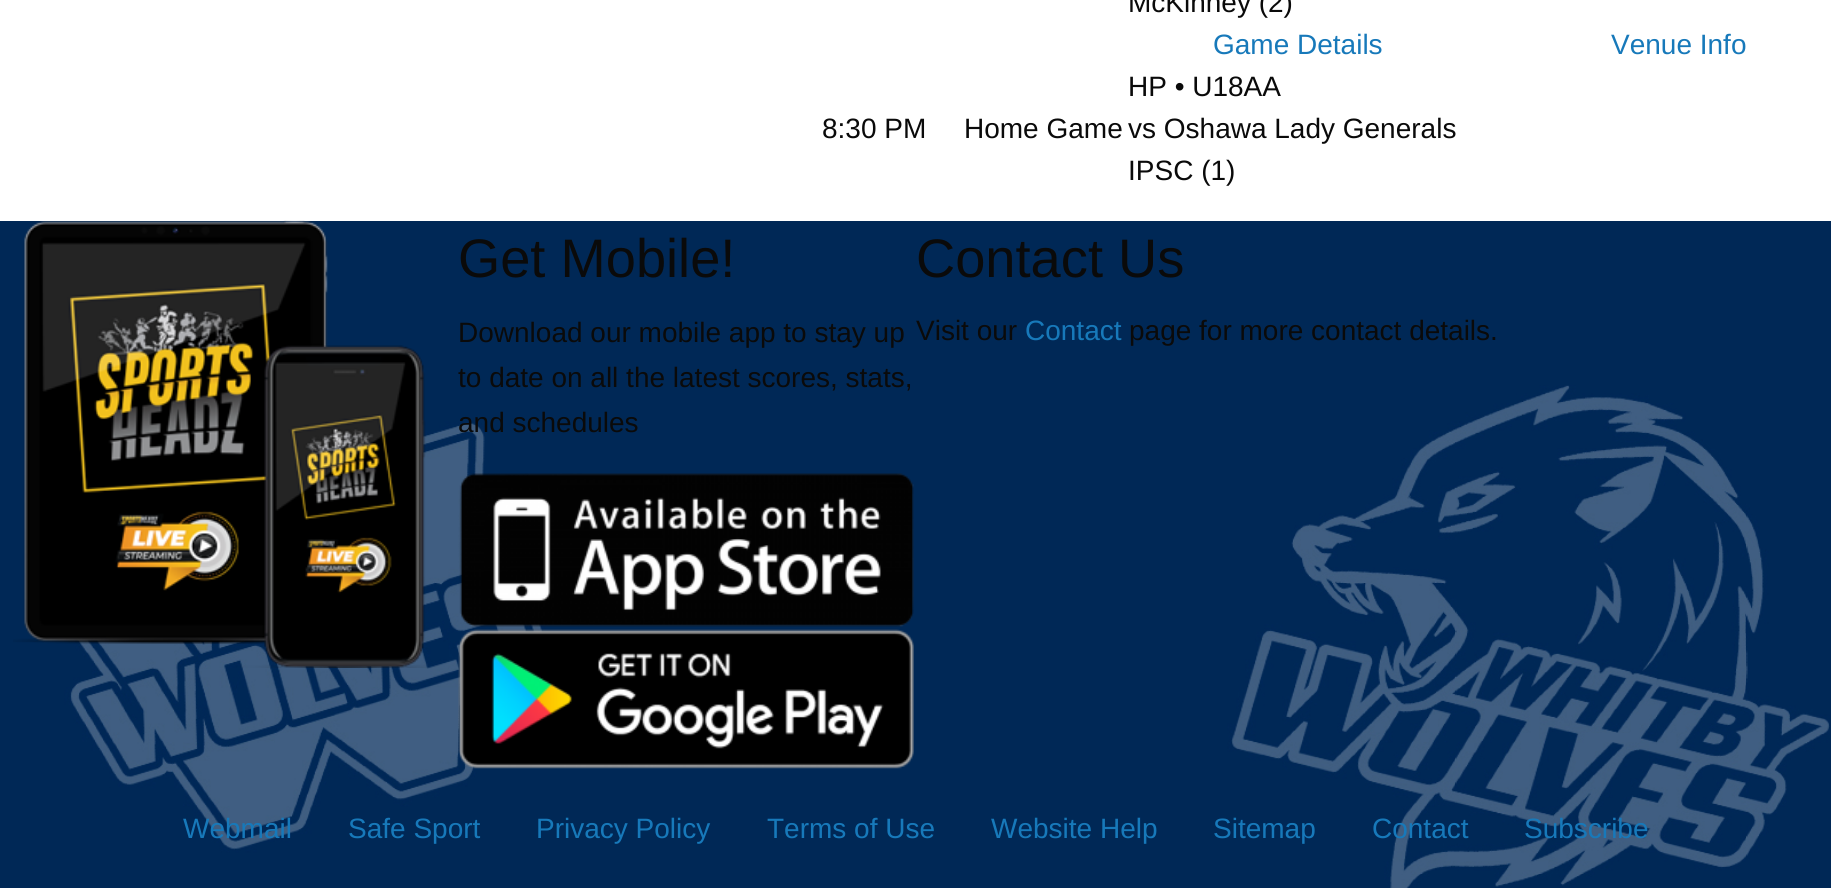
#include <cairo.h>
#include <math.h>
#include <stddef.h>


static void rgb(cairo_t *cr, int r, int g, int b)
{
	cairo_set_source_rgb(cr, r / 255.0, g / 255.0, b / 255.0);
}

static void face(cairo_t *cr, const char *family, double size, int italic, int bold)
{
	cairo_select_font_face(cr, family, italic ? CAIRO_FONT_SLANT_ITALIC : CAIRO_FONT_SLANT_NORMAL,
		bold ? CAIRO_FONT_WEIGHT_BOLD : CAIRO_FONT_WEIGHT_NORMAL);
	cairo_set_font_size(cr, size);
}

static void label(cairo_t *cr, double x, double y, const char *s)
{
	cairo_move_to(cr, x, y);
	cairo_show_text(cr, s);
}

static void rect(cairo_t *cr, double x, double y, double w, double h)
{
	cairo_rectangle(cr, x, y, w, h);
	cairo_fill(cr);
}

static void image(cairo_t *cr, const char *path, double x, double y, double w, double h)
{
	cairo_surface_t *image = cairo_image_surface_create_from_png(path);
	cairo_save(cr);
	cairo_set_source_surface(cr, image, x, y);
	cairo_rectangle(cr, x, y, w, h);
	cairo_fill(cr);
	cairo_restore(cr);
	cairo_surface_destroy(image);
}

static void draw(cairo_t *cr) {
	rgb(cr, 0, 40, 86);
	cairo_paint(cr);
	image(cr, "image0.png", 29, 385, 1801, 503);
	rgb(cr, 255, 255, 255);
	rect(cr, 0, 0, 1831, 221);
	face(cr, "Liberation Sans", 28, 0, 0);
	rgb(cr, 10, 10, 10);
	label(cr, 1128, 12, "McKinney (2)");
	rgb(cr, 23, 121, 186);
	label(cr, 1213, 54, "Game Details");
	label(cr, 1611, 54, "Venue Info");
	rgb(cr, 10, 10, 10);
	label(cr, 822, 138, "8:30 PM");
	label(cr, 964, 138, "Home Game");
	label(cr, 1128, 96, "HP • U18AA");
	label(cr, 1128, 138, "vs Oshawa Lady Generals");
	label(cr, 1128, 180, "IPSC (1)");
	image(cr, "image1.png", 13, 220, 414, 448);
	face(cr, "Liberation Sans", 54.25, 0, 0);
	label(cr, 458, 277, "Get Mobile!");
	face(cr, "Liberation Sans", 28, 0, 0);
	label(cr, 458, 342, "Download our mobile app to stay up");
	label(cr, 458, 387, "to date on all the latest scores, stats,");
	label(cr, 458, 432, "and schedules");
	image(cr, "image2.png", 459, 473, 455, 154);
	image(cr, "image3.png", 458, 629, 456, 140);
	face(cr, "Liberation Sans", 54.25, 0, 0);
	label(cr, 916, 277, "Contact Us");
	face(cr, "Liberation Sans", 28, 0, 0);
	label(cr, 916, 340, "Visit our");
	rgb(cr, 23, 121, 186);
	label(cr, 1025, 340, "Contact");
	rgb(cr, 10, 10, 10);
	label(cr, 1129, 340, "page for more contact details.");
	rgb(cr, 23, 121, 186);
	label(cr, 183, 838, "Webmail");
	label(cr, 348, 838, "Safe Sport");
	label(cr, 536, 838, "Privacy Policy");
	label(cr, 767, 838, "Terms of Use");
	label(cr, 991, 838, "Website Help");
	label(cr, 1213, 838, "Sitemap");
	label(cr, 1372, 838, "Contact");
	label(cr, 1524, 838, "Subscribe");
}

int main(void) {
	cairo_surface_t *surface = cairo_image_surface_create(CAIRO_FORMAT_RGB24, 1831, 888);
	cairo_t *cr = cairo_create(surface);
	cairo_font_options_t *options = cairo_font_options_create();
	cairo_font_options_set_hint_metrics(options, CAIRO_HINT_METRICS_OFF);
	cairo_font_options_set_hint_style(options, CAIRO_HINT_STYLE_NONE);
	cairo_set_font_options(cr, options);
	cairo_set_miter_limit(cr, 4);
	draw(cr);
	cairo_surface_write_to_png(surface, "render.png");
	cairo_font_options_destroy(options);
	cairo_destroy(cr);
	cairo_surface_destroy(surface);
	return 0;
}
